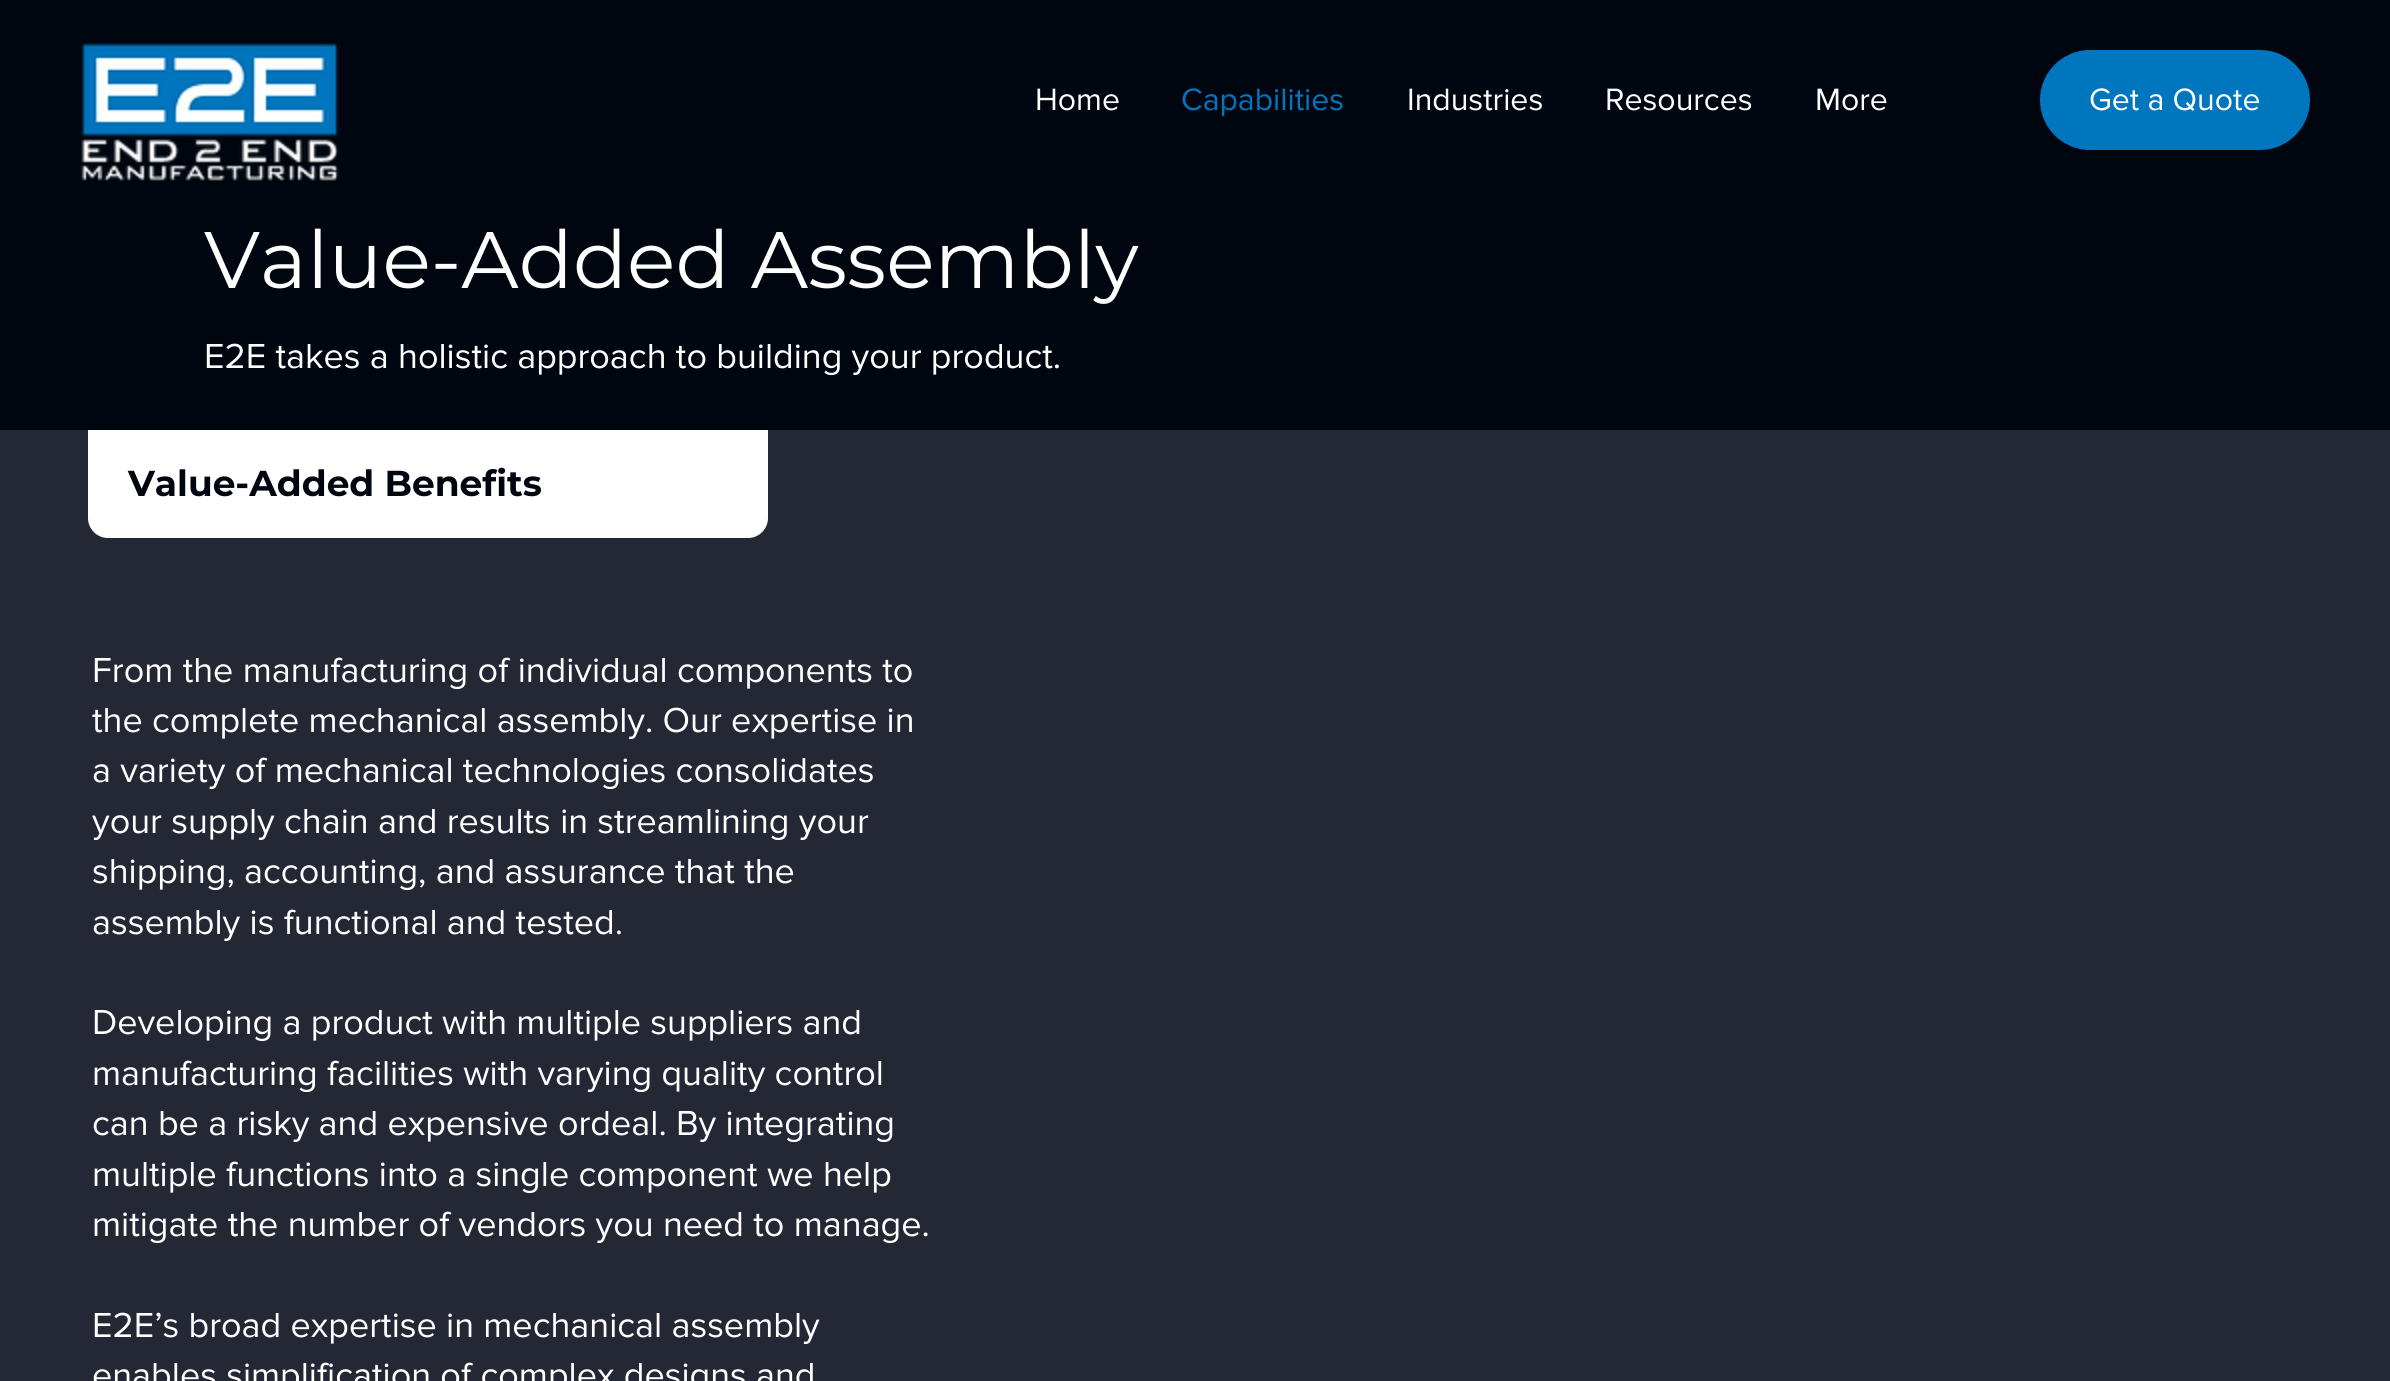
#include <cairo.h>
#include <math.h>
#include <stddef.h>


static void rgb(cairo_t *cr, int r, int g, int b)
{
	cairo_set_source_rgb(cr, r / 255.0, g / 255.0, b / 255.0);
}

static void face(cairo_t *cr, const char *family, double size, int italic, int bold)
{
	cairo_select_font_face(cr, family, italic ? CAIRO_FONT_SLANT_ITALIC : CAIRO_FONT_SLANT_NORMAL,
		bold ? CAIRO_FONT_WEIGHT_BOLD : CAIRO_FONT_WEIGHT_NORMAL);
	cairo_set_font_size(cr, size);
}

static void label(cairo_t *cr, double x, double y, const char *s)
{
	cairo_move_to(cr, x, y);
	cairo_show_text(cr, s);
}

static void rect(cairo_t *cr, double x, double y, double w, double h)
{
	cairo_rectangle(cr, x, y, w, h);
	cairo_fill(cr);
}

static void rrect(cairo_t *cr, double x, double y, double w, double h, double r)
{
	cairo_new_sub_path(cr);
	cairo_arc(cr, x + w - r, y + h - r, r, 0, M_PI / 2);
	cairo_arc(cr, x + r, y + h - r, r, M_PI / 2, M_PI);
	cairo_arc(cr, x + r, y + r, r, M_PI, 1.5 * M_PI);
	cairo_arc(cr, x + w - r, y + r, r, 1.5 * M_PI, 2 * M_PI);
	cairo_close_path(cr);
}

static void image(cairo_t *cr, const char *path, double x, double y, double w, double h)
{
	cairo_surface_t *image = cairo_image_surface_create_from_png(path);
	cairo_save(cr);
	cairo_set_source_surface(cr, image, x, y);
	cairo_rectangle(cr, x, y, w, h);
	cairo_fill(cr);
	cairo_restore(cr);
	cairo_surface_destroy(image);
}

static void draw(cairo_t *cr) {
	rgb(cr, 0, 6, 15);
	cairo_paint(cr);
	image(cr, "image0.png", 81, 43, 258, 138);
	face(cr, "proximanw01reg", 32, 0, 0);
	rgb(cr, 255, 255, 255);
	label(cr, 1035, 110, "Home");
	rgb(cr, 0, 118, 190);
	label(cr, 1181, 110, "Capabilities");
	rgb(cr, 255, 255, 255);
	label(cr, 1407, 110, "Industries");
	label(cr, 1605, 110, "Resources");
	label(cr, 1815, 110, "More");
	rgb(cr, 0, 118, 190);
	rrect(cr, 2040, 50, 270, 100, 50);
	cairo_fill(cr);
	rgb(cr, 255, 255, 255);
	label(cr, 2089, 110, "Get a Quote");
	face(cr, "Montserrat", 80, 0, 0);
	label(cr, 204, 288, "Value-Added Assembly");
	face(cr, "proximanw01reg", 36, 0, 0);
	label(cr, 204, 368, "E2E takes a holistic approach to building your product.");
	rgb(cr, 36, 40, 52);
	rect(cr, 0, 430, 2390, 951);
	rgb(cr, 255, 255, 255);
	cairo_new_path(cr);
	cairo_move_to(cr, 88, 430);
	cairo_line_to(cr, 768, 430);
	cairo_line_to(cr, 768, 518);
	cairo_curve_to(cr, 768, 529, 759, 538, 748, 538);
	cairo_line_to(cr, 108, 538);
	cairo_curve_to(cr, 97, 538, 88, 529, 88, 518);
	cairo_close_path(cr);
	cairo_fill(cr);
	face(cr, "Montserrat", 36, 0, 1);
	rgb(cr, 0, 6, 15);
	label(cr, 128, 496, "Value-Added Benefits");
	face(cr, "proximanw01reg", 36, 0, 0);
	rgb(cr, 255, 255, 255);
	label(cr, 92, 682, "From the manufacturing of individual components to");
	label(cr, 92, 732, "the complete mechanical assembly. Our expertise in");
	label(cr, 92, 782, "a variety of mechanical technologies consolidates");
	label(cr, 92, 833, "your supply chain and results in streamlining your");
	label(cr, 92, 883, "shipping, accounting, and assurance that the");
	label(cr, 92, 934, "assembly is functional and tested.");
	label(cr, 92, 1034, "Developing a product with multiple suppliers and");
	label(cr, 92, 1085, "manufacturing facilities with varying quality control");
	label(cr, 92, 1135, "can be a risky and expensive ordeal. By integrating");
	label(cr, 92, 1186, "multiple functions into a single component we help");
	label(cr, 92, 1236, "mitigate the number of vendors you need to manage.");
	label(cr, 92, 1337, "E2E’s broad expertise in mechanical assembly");
	label(cr, 92, 1387, "enables simplification of complex designs and");
}

int main(void) {
	cairo_surface_t *surface = cairo_image_surface_create(CAIRO_FORMAT_RGB24, 2390, 1381);
	cairo_t *cr = cairo_create(surface);
	cairo_font_options_t *options = cairo_font_options_create();
	cairo_font_options_set_hint_metrics(options, CAIRO_HINT_METRICS_OFF);
	cairo_font_options_set_hint_style(options, CAIRO_HINT_STYLE_NONE);
	cairo_set_font_options(cr, options);
	cairo_set_miter_limit(cr, 4);
	draw(cr);
	cairo_surface_write_to_png(surface, "render.png");
	cairo_font_options_destroy(options);
	cairo_destroy(cr);
	cairo_surface_destroy(surface);
	return 0;
}
